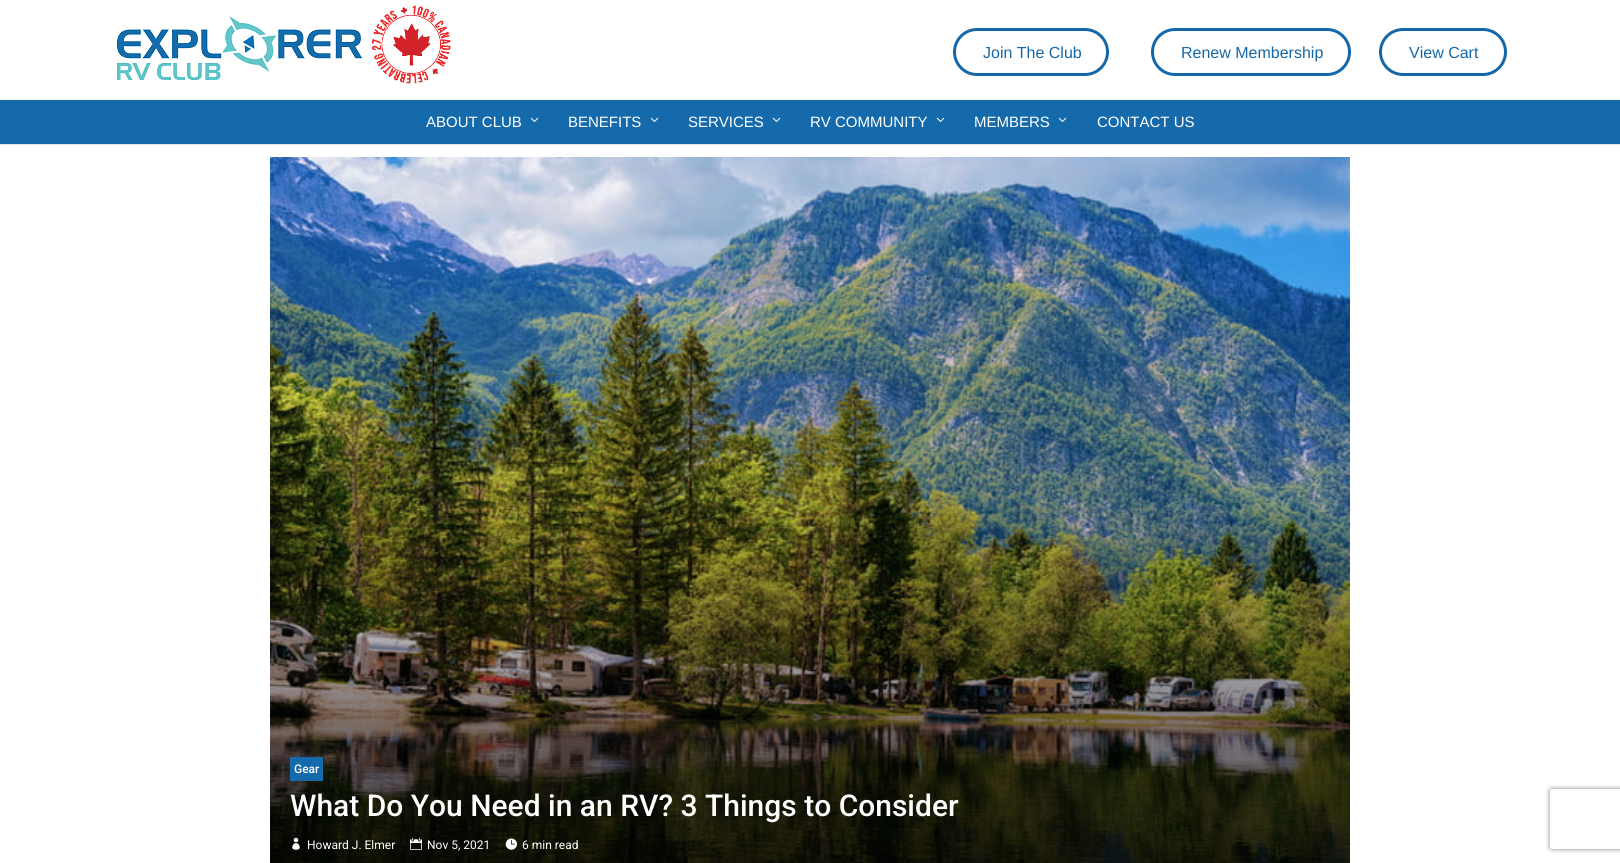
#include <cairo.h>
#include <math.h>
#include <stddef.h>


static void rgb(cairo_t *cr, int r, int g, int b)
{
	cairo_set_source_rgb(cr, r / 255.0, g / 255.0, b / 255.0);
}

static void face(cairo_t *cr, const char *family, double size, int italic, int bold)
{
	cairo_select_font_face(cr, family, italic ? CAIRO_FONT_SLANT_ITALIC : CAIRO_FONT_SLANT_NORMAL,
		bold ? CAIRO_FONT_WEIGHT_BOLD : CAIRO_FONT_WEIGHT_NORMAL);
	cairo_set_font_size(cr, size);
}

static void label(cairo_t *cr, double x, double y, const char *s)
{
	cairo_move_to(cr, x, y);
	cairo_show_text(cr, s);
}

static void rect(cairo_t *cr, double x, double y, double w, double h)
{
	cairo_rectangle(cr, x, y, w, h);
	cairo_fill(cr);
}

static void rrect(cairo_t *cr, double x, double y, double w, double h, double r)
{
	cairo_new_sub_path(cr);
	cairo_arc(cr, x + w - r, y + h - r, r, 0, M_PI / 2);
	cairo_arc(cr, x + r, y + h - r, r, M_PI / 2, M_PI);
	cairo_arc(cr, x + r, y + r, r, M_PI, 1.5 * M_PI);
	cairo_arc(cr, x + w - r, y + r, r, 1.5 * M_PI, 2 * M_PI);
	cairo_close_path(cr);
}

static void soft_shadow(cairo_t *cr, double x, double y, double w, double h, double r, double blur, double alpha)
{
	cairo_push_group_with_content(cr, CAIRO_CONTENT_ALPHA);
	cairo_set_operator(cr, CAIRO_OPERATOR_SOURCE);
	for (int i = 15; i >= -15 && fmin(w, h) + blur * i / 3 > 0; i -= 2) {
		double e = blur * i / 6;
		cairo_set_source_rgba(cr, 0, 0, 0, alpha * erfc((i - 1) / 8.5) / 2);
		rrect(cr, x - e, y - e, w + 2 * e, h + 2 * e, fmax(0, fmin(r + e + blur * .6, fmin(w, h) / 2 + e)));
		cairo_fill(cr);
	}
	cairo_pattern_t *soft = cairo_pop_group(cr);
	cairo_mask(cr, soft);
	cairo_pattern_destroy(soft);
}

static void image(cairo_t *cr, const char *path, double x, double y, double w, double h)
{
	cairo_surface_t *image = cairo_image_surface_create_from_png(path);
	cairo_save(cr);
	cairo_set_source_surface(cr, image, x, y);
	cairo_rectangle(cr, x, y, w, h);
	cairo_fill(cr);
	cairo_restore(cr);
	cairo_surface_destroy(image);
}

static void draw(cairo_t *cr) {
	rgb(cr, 255, 255, 255);
	cairo_paint(cr);
	rgb(cr, 230, 230, 230);
	rect(cr, 0, 144, 1620, 1);
	image(cr, "image0.png", 117, 16, 246, 65);
	image(cr, "image1.png", 371, 5, 80, 79);
	rrect(cr, 954.5, 29.5, 153, 45, 22.5);
	rgb(cr, 20, 103, 168);
	cairo_set_line_width(cr, 3);
	cairo_stroke(cr);
	face(cr, "Liberation Sans", 16, 0, 0);
	label(cr, 983, 58, "Join The Club");
	rrect(cr, 1152.5, 29.5, 197, 45, 22.5);
	cairo_stroke(cr);
	label(cr, 1181, 58, "Renew Membership");
	rrect(cr, 1380.5, 29.5, 125, 45, 22.5);
	cairo_stroke(cr);
	label(cr, 1409, 58, "View Cart");
	rgb(cr, 21, 106, 171);
	rect(cr, 0, 100, 1620, 44);
	face(cr, "Liberation Sans", 15, 0, 0);
	rgb(cr, 255, 255, 255);
	label(cr, 426, 127, "ABOUT CLUB");
	image(cr, "image2.png", 530, 117, 9, 5);
	label(cr, 568, 127, "BENEFITS");
	image(cr, "image2.png", 650, 117, 9, 5);
	label(cr, 688, 127, "SERVICES");
	image(cr, "image2.png", 772, 117, 9, 5);
	label(cr, 810, 127, "RV COMMUNITY");
	image(cr, "image2.png", 936, 117, 9, 5);
	label(cr, 974, 127, "MEMBERS");
	image(cr, "image2.png", 1058, 117, 9, 5);
	label(cr, 1097, 127, "CONTACT US");
	image(cr, "image3.png", 270, 157, 1080, 706);
	rgb(cr, 21, 106, 171);
	rect(cr, 290, 757, 33, 24);
	face(cr, "Roboto Medium", 12, 0, 0);
	rgb(cr, 255, 255, 255);
	label(cr, 294, 773, "Gear");
	face(cr, "Roboto Medium", 30, 0, 0);
	label(cr, 290, 816, "What Do You Need in an RV? 3 Things to Consider");
	image(cr, "image4.png", 292, 837, 8, 13);
	face(cr, "Roboto", 12, 0, 0);
	label(cr, 307, 849, "Howard J. Elmer");
	image(cr, "image5.png", 410, 837, 12, 13);
	label(cr, 427, 849, "Nov 5, 2021");
	image(cr, "image6.png", 505, 838, 12, 12);
	label(cr, 522, 849, "6 min read");
	cairo_save(cr);
	cairo_set_fill_rule(cr, CAIRO_FILL_RULE_EVEN_ODD);
	cairo_new_path(cr);
	cairo_move_to(cr, 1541, 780);
	cairo_line_to(cr, 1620, 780);
	cairo_line_to(cr, 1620, 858);
	cairo_line_to(cr, 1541, 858);
	cairo_close_path(cr);
	cairo_move_to(cr, 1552, 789);
	cairo_line_to(cr, 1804, 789);
	cairo_curve_to(cr, 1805, 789, 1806, 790, 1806, 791);
	cairo_line_to(cr, 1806, 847);
	cairo_curve_to(cr, 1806, 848, 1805, 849, 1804, 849);
	cairo_line_to(cr, 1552, 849);
	cairo_curve_to(cr, 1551, 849, 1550, 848, 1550, 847);
	cairo_line_to(cr, 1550, 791);
	cairo_curve_to(cr, 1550, 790, 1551, 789, 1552, 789);
	cairo_close_path(cr);
	cairo_clip(cr);
	rgb(cr, 128, 128, 128);
	soft_shadow(cr, 1550, 789, 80, 60, 2, 2.5, 1);
	cairo_restore(cr);
}

int main(void) {
	cairo_surface_t *surface = cairo_image_surface_create(CAIRO_FORMAT_RGB24, 1620, 863);
	cairo_t *cr = cairo_create(surface);
	cairo_font_options_t *options = cairo_font_options_create();
	cairo_font_options_set_hint_metrics(options, CAIRO_HINT_METRICS_OFF);
	cairo_font_options_set_hint_style(options, CAIRO_HINT_STYLE_NONE);
	cairo_set_font_options(cr, options);
	cairo_set_miter_limit(cr, 4);
	draw(cr);
	cairo_surface_write_to_png(surface, "render.png");
	cairo_font_options_destroy(options);
	cairo_destroy(cr);
	cairo_surface_destroy(surface);
	return 0;
}
